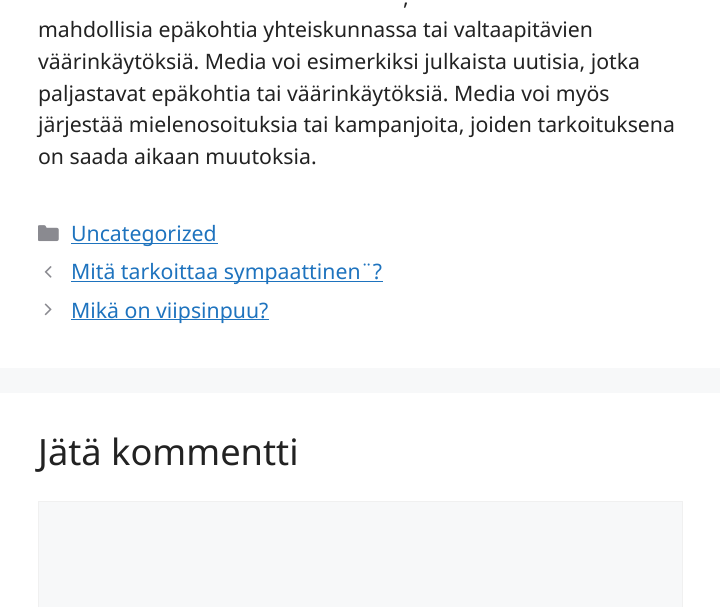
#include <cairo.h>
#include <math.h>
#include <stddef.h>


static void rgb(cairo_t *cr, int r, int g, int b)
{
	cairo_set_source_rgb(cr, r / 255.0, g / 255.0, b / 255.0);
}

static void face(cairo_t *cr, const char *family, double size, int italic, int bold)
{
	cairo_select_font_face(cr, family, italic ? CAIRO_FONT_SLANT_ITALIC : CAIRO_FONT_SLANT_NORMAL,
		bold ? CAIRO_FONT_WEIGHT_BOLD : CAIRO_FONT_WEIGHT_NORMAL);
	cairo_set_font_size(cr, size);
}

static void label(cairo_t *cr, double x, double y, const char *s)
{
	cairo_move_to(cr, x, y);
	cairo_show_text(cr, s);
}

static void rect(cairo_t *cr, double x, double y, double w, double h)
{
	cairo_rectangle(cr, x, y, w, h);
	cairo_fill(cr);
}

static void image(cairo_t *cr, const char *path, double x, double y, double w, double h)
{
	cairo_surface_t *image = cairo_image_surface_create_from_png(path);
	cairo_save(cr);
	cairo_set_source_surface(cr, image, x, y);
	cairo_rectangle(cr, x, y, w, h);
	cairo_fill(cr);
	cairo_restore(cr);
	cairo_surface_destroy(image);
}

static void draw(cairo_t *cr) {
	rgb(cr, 247, 248, 249);
	cairo_paint(cr);
	rgb(cr, 255, 255, 255);
	rect(cr, 0, 0, 720, 368);
	face(cr, "Noto Sans", 21.25, 0, 0);
	rgb(cr, 34, 34, 34);
	label(cr, 403, 5, ",");
	label(cr, 38, 37, "mahdollisia epäkohtia yhteiskunnassa tai valtaapitävien");
	label(cr, 38, 69, "väärinkäytöksiä. Media voi esimerkiksi julkaista uutisia, jotka");
	label(cr, 38, 101, "paljastavat epäkohtia tai väärinkäytöksiä. Media voi myös");
	label(cr, 38, 132, "järjestää mielenosoituksia tai kampanjoita, joiden tarkoituksena");
	label(cr, 38, 164, "on saada aikaan muutoksia.");
	image(cr, "image0.png", 38, 225, 21, 17);
	rgb(cr, 30, 115, 190);
	rect(cr, 71, 243, 147, 1);
	label(cr, 71, 241, "Uncategorized");
	image(cr, "image1.png", 44, 266, 8, 12);
	rect(cr, 71, 281, 312, 1);
	label(cr, 71, 279, "Mitä tarkoittaa sympaattinen¨?");
	image(cr, "image2.png", 44, 303, 8, 13);
	rect(cr, 71, 319, 198, 1);
	label(cr, 71, 318, "Mikä on viipsinpuu?");
	rgb(cr, 255, 255, 255);
	rect(cr, 0, 393, 720, 214);
	face(cr, "Noto Sans", 36.25, 0, 0);
	rgb(cr, 34, 34, 34);
	label(cr, 38, 465, "Jätä kommentti");
	rgb(cr, 247, 248, 249);
	cairo_rectangle(cr, 38.5, 501.5, 644, 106);
	cairo_fill_preserve(cr);
	rgb(cr, 240, 240, 240);
	cairo_set_line_width(cr, 1);
	cairo_stroke(cr);
}

int main(void) {
	cairo_surface_t *surface = cairo_image_surface_create(CAIRO_FORMAT_RGB24, 720, 607);
	cairo_t *cr = cairo_create(surface);
	cairo_font_options_t *options = cairo_font_options_create();
	cairo_font_options_set_hint_metrics(options, CAIRO_HINT_METRICS_OFF);
	cairo_font_options_set_hint_style(options, CAIRO_HINT_STYLE_NONE);
	cairo_set_font_options(cr, options);
	cairo_set_miter_limit(cr, 4);
	draw(cr);
	cairo_surface_write_to_png(surface, "render.png");
	cairo_font_options_destroy(options);
	cairo_destroy(cr);
	cairo_surface_destroy(surface);
	return 0;
}
